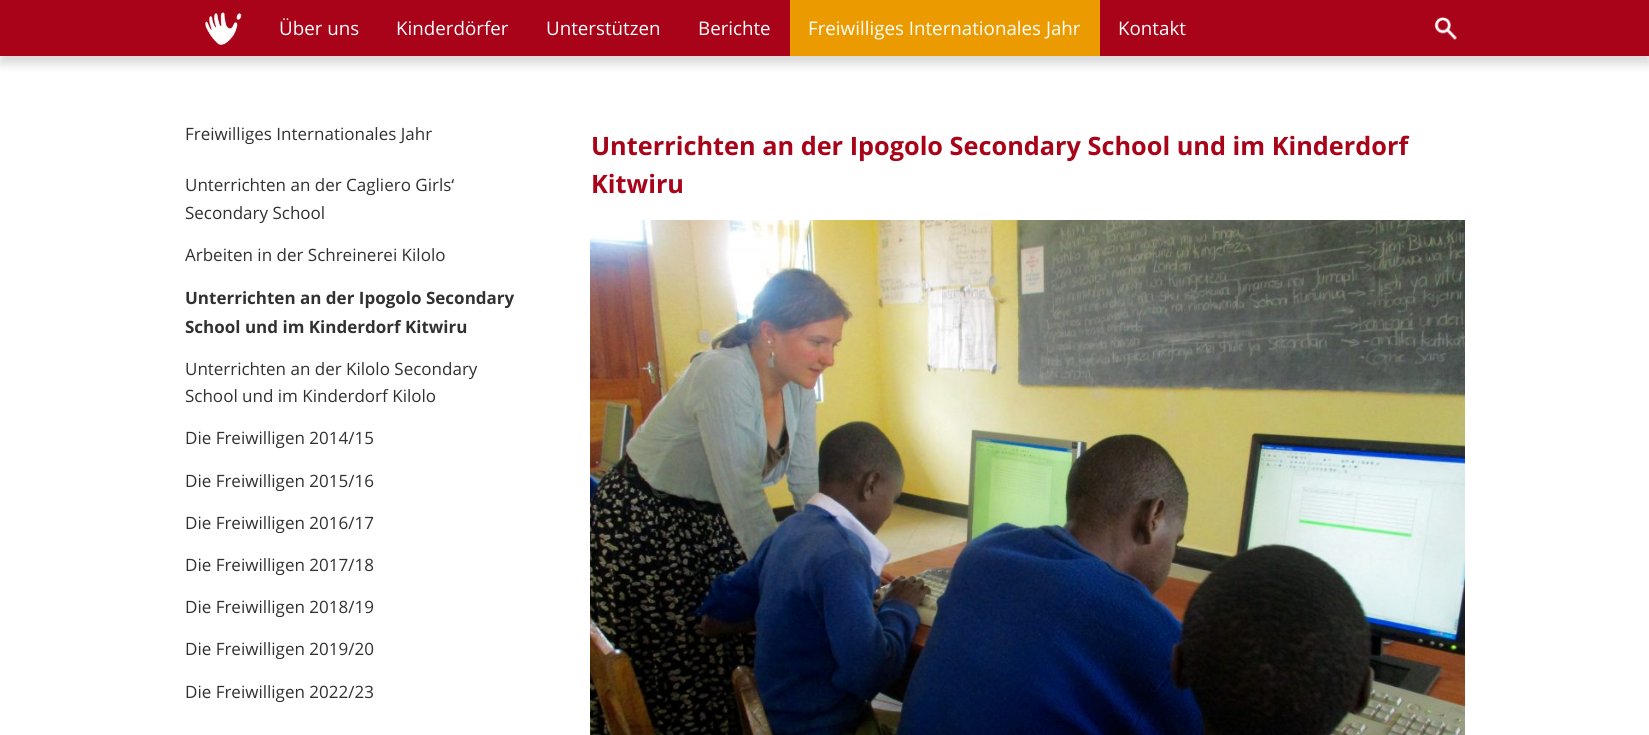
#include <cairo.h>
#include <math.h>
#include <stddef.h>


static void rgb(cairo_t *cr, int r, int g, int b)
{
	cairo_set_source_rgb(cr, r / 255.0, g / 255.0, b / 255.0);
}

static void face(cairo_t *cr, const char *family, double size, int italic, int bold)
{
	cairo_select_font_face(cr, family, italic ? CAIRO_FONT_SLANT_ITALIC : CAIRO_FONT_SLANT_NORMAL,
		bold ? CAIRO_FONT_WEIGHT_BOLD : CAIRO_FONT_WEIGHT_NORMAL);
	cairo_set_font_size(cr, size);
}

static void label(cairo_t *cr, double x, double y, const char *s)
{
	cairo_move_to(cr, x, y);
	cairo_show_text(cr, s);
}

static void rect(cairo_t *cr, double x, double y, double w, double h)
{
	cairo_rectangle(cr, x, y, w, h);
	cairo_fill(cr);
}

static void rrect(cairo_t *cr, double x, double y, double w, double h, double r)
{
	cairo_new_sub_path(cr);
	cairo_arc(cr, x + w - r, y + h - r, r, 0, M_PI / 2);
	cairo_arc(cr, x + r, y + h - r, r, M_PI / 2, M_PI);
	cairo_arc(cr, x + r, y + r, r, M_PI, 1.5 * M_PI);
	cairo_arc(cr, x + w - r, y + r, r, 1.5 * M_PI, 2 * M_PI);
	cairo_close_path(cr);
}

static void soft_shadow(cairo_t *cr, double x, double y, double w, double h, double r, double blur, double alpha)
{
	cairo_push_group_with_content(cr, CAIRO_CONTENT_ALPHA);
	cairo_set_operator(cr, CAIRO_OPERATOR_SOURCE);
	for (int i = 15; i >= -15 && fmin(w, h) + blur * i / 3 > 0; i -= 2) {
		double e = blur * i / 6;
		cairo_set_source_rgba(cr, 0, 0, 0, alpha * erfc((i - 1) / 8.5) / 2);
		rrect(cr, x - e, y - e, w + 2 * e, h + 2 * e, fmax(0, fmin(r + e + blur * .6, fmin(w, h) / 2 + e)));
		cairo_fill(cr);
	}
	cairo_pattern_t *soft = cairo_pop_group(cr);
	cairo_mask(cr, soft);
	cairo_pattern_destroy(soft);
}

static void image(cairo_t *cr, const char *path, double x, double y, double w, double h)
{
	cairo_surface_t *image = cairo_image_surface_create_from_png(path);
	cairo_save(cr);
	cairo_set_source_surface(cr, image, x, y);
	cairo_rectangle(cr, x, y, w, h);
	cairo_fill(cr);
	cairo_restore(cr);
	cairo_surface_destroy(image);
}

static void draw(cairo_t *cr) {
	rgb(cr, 255, 255, 255);
	cairo_paint(cr);
	rgb(cr, 0, 0, 0);
	soft_shadow(cr, 0, 8, 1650, 56, 0, 5, 0.15);
	rgb(cr, 168, 3, 25);
	rect(cr, 0, 0, 1649, 56);
	image(cr, "image0.png", 205, 12, 37, 33);
	face(cr, "Open Sans", 18.75, 0, 0);
	rgb(cr, 255, 255, 255);
	label(cr, 279, 35, "Über uns");
	label(cr, 396, 35, "Kinderdörfer");
	label(cr, 546, 35, "Unterstützen");
	label(cr, 698, 35, "Berichte");
	rgb(cr, 235, 155, 0);
	rect(cr, 790, 0, 310, 56);
	rgb(cr, 255, 255, 255);
	label(cr, 808, 35, "Freiwilliges Internationales Jahr");
	label(cr, 1118, 35, "Kontakt");
	image(cr, "image1.png", 1434, 17, 23, 23);
	face(cr, "Open Sans", 17, 0, 0);
	rgb(cr, 49, 49, 49);
	label(cr, 185, 140, "Freiwilliges Internationales Jahr");
	label(cr, 185, 191, "Unterrichten an der Cagliero Girls‘");
	label(cr, 185, 219, "Secondary School");
	label(cr, 185, 261, "Arbeiten in der Schreinerei Kilolo");
	face(cr, "Open Sans", 17, 0, 1);
	label(cr, 185, 304, "Unterrichten an der Ipogolo Secondary");
	label(cr, 185, 333, "School und im Kinderdorf Kitwiru");
	face(cr, "Open Sans", 17, 0, 0);
	label(cr, 185, 375, "Unterrichten an der Kilolo Secondary");
	label(cr, 185, 402, "School und im Kinderdorf Kilolo");
	label(cr, 185, 444, "Die Freiwilligen 2014/15");
	label(cr, 185, 487, "Die Freiwilligen 2015/16");
	label(cr, 185, 529, "Die Freiwilligen 2016/17");
	label(cr, 185, 571, "Die Freiwilligen 2017/18");
	label(cr, 185, 613, "Die Freiwilligen 2018/19");
	label(cr, 185, 655, "Die Freiwilligen 2019/20");
	label(cr, 185, 698, "Die Freiwilligen 2022/23");
	face(cr, "Open Sans", 25.3, 0, 1);
	rgb(cr, 168, 3, 25);
	label(cr, 591, 155, "Unterrichten an der Ipogolo Secondary School und im Kinderdorf");
	label(cr, 591, 193, "Kitwiru");
	image(cr, "image2.png", 590, 220, 875, 515);
}

int main(void) {
	cairo_surface_t *surface = cairo_image_surface_create(CAIRO_FORMAT_RGB24, 1649, 735);
	cairo_t *cr = cairo_create(surface);
	cairo_font_options_t *options = cairo_font_options_create();
	cairo_font_options_set_hint_metrics(options, CAIRO_HINT_METRICS_OFF);
	cairo_font_options_set_hint_style(options, CAIRO_HINT_STYLE_NONE);
	cairo_set_font_options(cr, options);
	cairo_set_miter_limit(cr, 4);
	draw(cr);
	cairo_surface_write_to_png(surface, "render.png");
	cairo_font_options_destroy(options);
	cairo_destroy(cr);
	cairo_surface_destroy(surface);
	return 0;
}
